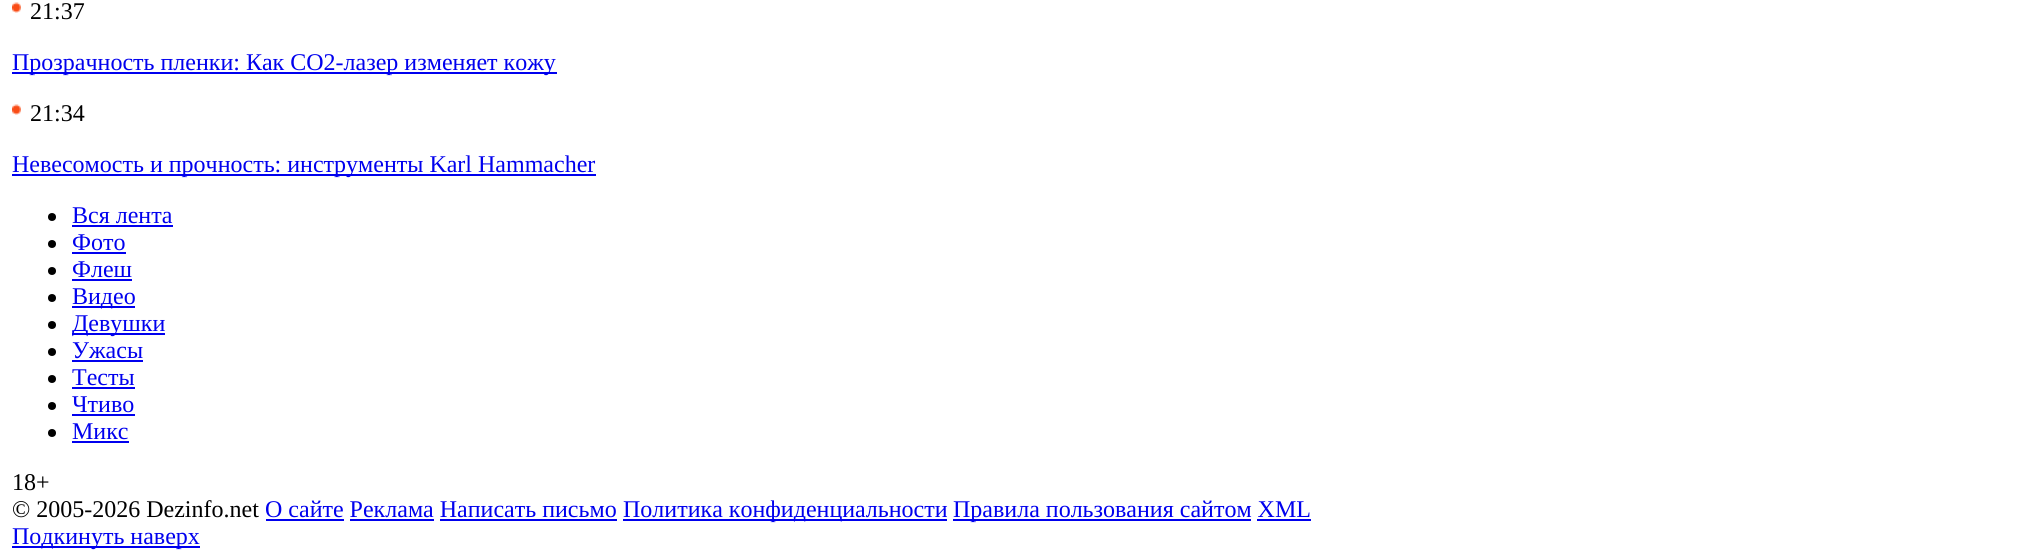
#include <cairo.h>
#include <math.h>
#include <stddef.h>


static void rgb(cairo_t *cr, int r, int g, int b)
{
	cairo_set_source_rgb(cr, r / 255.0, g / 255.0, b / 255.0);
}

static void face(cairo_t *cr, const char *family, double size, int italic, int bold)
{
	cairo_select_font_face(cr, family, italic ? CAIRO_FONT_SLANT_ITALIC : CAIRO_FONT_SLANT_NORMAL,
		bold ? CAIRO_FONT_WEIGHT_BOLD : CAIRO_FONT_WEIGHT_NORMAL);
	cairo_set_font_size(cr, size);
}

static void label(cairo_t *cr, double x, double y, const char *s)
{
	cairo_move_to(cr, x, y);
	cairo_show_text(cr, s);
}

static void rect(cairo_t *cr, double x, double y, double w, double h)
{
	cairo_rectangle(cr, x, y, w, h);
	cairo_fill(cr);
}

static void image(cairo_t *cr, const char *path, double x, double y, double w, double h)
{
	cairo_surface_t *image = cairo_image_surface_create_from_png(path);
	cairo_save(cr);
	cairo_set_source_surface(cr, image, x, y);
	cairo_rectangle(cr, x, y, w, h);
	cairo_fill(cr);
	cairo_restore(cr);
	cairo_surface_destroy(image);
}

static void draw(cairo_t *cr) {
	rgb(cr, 255, 255, 255);
	cairo_paint(cr);
	image(cr, "image0.png", 12, 2, 9, 11);
	face(cr, "Liberation Serif", 24, 0, 0);
	rgb(cr, 0, 0, 0);
	label(cr, 30, 19, "21:37");
	rgb(cr, 0, 0, 238);
	rect(cr, 12, 72, 545, 2);
	label(cr, 12, 70, "Прозрачность пленки: Как CO2-лазер изменяет кожу");
	image(cr, "image0.png", 12, 104, 9, 11);
	rgb(cr, 0, 0, 0);
	label(cr, 30, 121, "21:34");
	rgb(cr, 0, 0, 238);
	rect(cr, 12, 174, 584, 2);
	label(cr, 12, 172, "Невесомость и прочность: инструменты Karl Hammacher");
	rgb(cr, 0, 0, 0);
	cairo_new_path(cr);
	cairo_arc(cr, 52, 217, 4, 0, 2 * M_PI);
	cairo_fill(cr);
	rgb(cr, 0, 0, 238);
	label(cr, 72, 223, "Вся лента");
	rect(cr, 72, 225, 101, 2);
	rgb(cr, 0, 0, 0);
	cairo_new_path(cr);
	cairo_arc(cr, 52, 244, 4, 0, 2 * M_PI);
	cairo_fill(cr);
	rgb(cr, 0, 0, 238);
	label(cr, 72, 250, "Фото");
	rect(cr, 72, 252, 54, 2);
	rgb(cr, 0, 0, 0);
	cairo_new_path(cr);
	cairo_arc(cr, 52, 271, 4, 0, 2 * M_PI);
	cairo_fill(cr);
	rgb(cr, 0, 0, 238);
	label(cr, 72, 277, "Флеш");
	rect(cr, 72, 279, 60, 2);
	rgb(cr, 0, 0, 0);
	cairo_new_path(cr);
	cairo_arc(cr, 52, 298, 4, 0, 2 * M_PI);
	cairo_fill(cr);
	rgb(cr, 0, 0, 238);
	rect(cr, 72, 306, 63, 2);
	label(cr, 72, 304, "Видео");
	rgb(cr, 0, 0, 0);
	cairo_new_path(cr);
	cairo_arc(cr, 52, 325, 4, 0, 2 * M_PI);
	cairo_fill(cr);
	rgb(cr, 0, 0, 238);
	rect(cr, 72, 333, 93, 2);
	label(cr, 72, 331, "Девушки");
	rgb(cr, 0, 0, 0);
	cairo_new_path(cr);
	cairo_arc(cr, 52, 352, 4, 0, 2 * M_PI);
	cairo_fill(cr);
	rgb(cr, 0, 0, 238);
	label(cr, 72, 358, "Ужасы");
	rect(cr, 72, 360, 71, 2);
	rgb(cr, 0, 0, 0);
	cairo_new_path(cr);
	cairo_arc(cr, 52, 379, 4, 0, 2 * M_PI);
	cairo_fill(cr);
	rgb(cr, 0, 0, 238);
	label(cr, 72, 385, "Тесты");
	rect(cr, 72, 387, 63, 2);
	rgb(cr, 0, 0, 0);
	cairo_new_path(cr);
	cairo_arc(cr, 52, 406, 4, 0, 2 * M_PI);
	cairo_fill(cr);
	rgb(cr, 0, 0, 238);
	label(cr, 72, 412, "Чтиво");
	rect(cr, 72, 414, 63, 2);
	rgb(cr, 0, 0, 0);
	cairo_new_path(cr);
	cairo_arc(cr, 52, 433, 4, 0, 2 * M_PI);
	cairo_fill(cr);
	rgb(cr, 0, 0, 238);
	label(cr, 72, 439, "Микс");
	rect(cr, 72, 441, 57, 2);
	rgb(cr, 0, 0, 0);
	label(cr, 12, 490, "18+");
	label(cr, 12, 517, "© 2005-2026 Dezinfo.net");
	rgb(cr, 0, 0, 238);
	label(cr, 265, 517, "О сайте Реклама Написать письмо");
	rect(cr, 266, 519, 78, 2);
	rect(cr, 623, 519, 324, 2);
	label(cr, 623, 517, "Политика конфиденциальности");
	rect(cr, 953, 519, 298, 2);
	label(cr, 953, 517, "Правила пользования сайтом XML");
	rect(cr, 350, 519, 84, 2);
	rect(cr, 440, 519, 177, 2);
	rect(cr, 1257, 519, 54, 2);
	rect(cr, 12, 546, 188, 2);
	label(cr, 12, 544, "Подкинуть наверх");
}

int main(void) {
	cairo_surface_t *surface = cairo_image_surface_create(CAIRO_FORMAT_RGB24, 2040, 550);
	cairo_t *cr = cairo_create(surface);
	cairo_font_options_t *options = cairo_font_options_create();
	cairo_font_options_set_hint_metrics(options, CAIRO_HINT_METRICS_OFF);
	cairo_font_options_set_hint_style(options, CAIRO_HINT_STYLE_NONE);
	cairo_set_font_options(cr, options);
	cairo_set_miter_limit(cr, 4);
	draw(cr);
	cairo_surface_write_to_png(surface, "render.png");
	cairo_font_options_destroy(options);
	cairo_destroy(cr);
	cairo_surface_destroy(surface);
	return 0;
}
